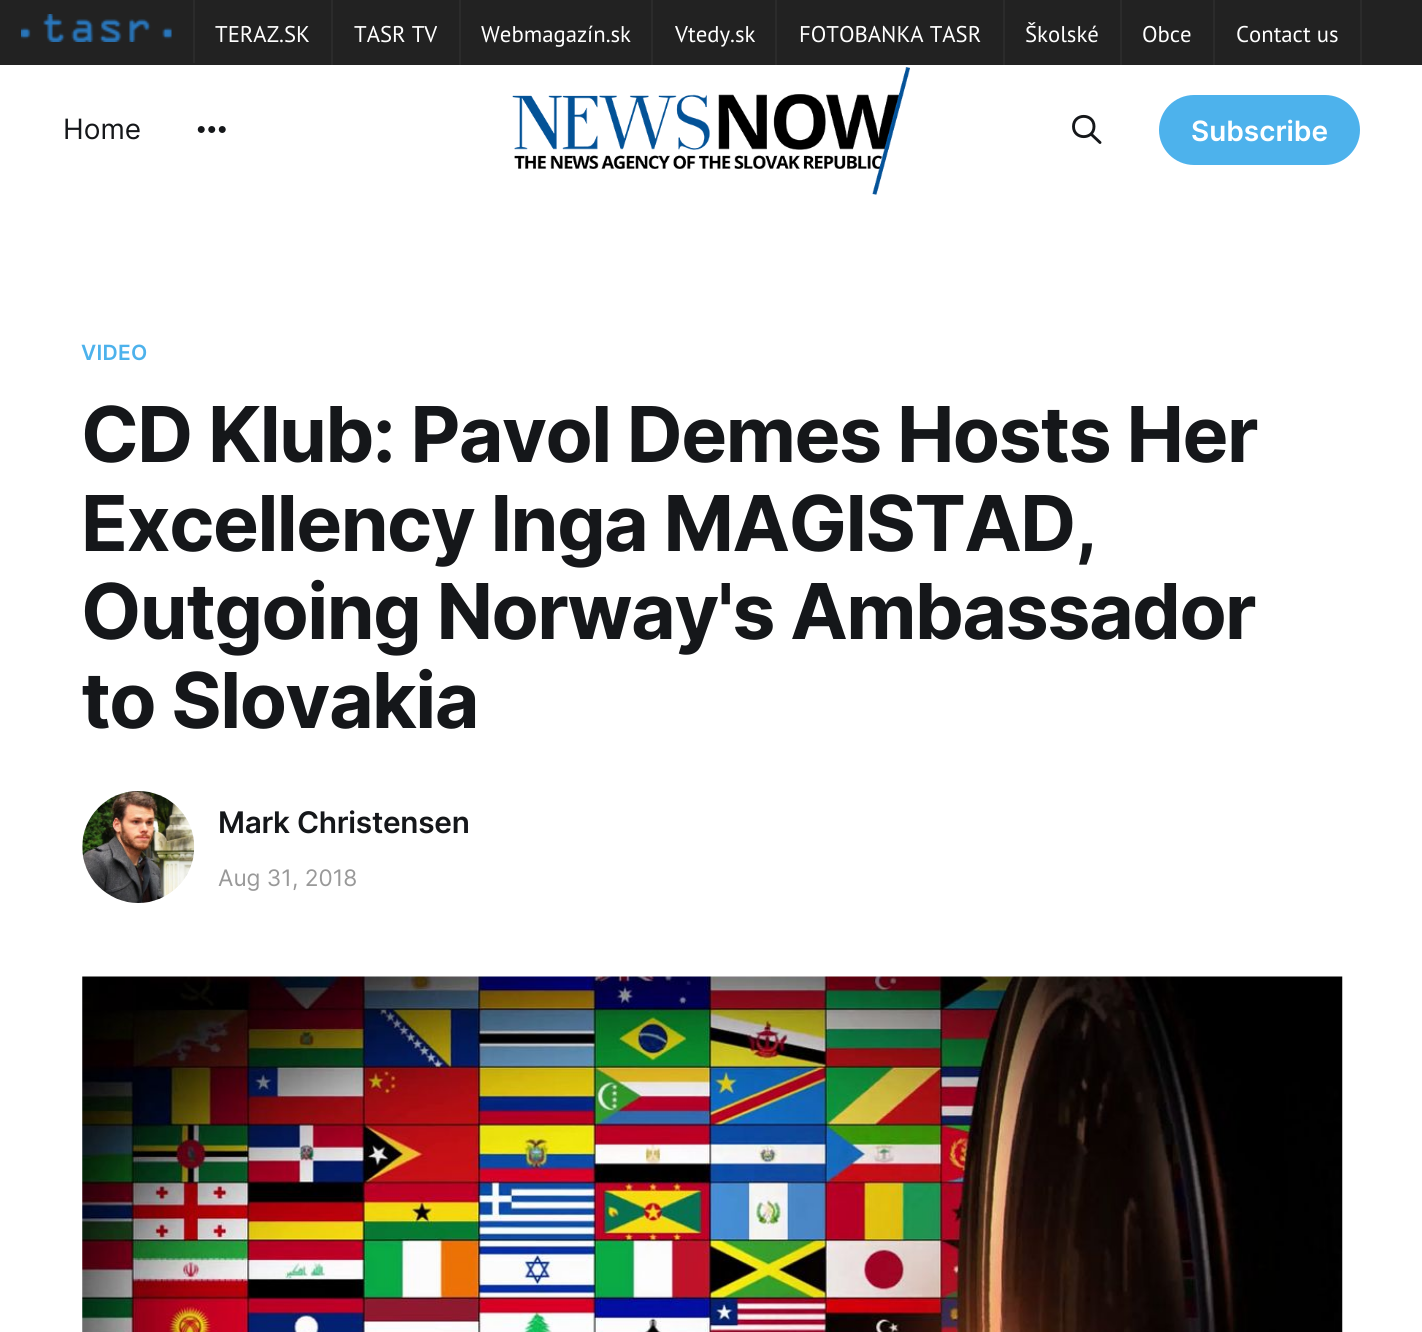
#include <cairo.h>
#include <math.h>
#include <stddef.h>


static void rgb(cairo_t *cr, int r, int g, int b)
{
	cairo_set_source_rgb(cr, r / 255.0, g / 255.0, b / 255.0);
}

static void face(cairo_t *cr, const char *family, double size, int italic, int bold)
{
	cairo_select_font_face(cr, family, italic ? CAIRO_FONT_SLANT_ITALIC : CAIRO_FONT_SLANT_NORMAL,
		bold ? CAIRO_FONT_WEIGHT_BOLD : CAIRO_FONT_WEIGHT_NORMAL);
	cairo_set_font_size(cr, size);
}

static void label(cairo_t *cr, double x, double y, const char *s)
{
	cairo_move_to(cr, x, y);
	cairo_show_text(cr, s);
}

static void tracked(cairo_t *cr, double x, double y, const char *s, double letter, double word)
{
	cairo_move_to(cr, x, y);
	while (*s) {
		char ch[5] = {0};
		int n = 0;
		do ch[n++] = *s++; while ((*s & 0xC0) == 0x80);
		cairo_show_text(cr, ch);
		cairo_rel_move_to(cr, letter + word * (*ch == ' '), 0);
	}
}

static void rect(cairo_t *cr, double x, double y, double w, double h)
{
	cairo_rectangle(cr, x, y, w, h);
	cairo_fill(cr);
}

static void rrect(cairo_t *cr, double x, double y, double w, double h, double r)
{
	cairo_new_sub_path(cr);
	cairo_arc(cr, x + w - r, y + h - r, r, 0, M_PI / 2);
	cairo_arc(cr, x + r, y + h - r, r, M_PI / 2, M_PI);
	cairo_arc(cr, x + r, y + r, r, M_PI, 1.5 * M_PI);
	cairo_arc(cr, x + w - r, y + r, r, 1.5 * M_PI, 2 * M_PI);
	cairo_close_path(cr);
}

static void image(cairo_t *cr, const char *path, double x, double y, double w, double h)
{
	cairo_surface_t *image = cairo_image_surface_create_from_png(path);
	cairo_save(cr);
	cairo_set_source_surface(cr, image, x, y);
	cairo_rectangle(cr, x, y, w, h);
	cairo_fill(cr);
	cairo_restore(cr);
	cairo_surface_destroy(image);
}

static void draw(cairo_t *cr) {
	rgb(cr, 255, 255, 255);
	cairo_paint(cr);
	rgb(cr, 34, 34, 34);
	rect(cr, 0, 0, 1422, 65);
	rgb(cr, 43, 43, 43);
	rect(cr, 193, 0, 2, 63);
	image(cr, "image0.png", 21, 14, 151, 28);
	rect(cr, 331, 0, 2, 65);
	face(cr, "PT Sans", 22.75, 0, 0);
	rgb(cr, 255, 255, 255);
	label(cr, 215, 42, "TERAZ.SK");
	rgb(cr, 43, 43, 43);
	rect(cr, 459, 0, 2, 65);
	rgb(cr, 255, 255, 255);
	label(cr, 354, 42, "TASR TV");
	rgb(cr, 43, 43, 43);
	rect(cr, 651, 0, 2, 65);
	rgb(cr, 255, 255, 255);
	label(cr, 481, 42, "Webmagazín.sk");
	rgb(cr, 43, 43, 43);
	rect(cr, 775, 0, 2, 65);
	rgb(cr, 255, 255, 255);
	label(cr, 675, 42, "Vtedy.sk");
	rgb(cr, 43, 43, 43);
	rect(cr, 1003, 0, 2, 65);
	rgb(cr, 255, 255, 255);
	label(cr, 799, 42, "FOTOBANKA TASR");
	rgb(cr, 43, 43, 43);
	rect(cr, 1120, 0, 2, 65);
	rgb(cr, 255, 255, 255);
	label(cr, 1025, 42, "Školské");
	rgb(cr, 43, 43, 43);
	rect(cr, 1213, 0, 2, 65);
	rgb(cr, 255, 255, 255);
	label(cr, 1142, 42, "Obce");
	rgb(cr, 43, 43, 43);
	rect(cr, 1360, 0, 2, 65);
	rgb(cr, 255, 255, 255);
	label(cr, 1236, 42, "Contact us");
	face(cr, "Inter", 28, 0, 0);
	rgb(cr, 21, 23, 26);
	label(cr, 63, 139, "Home");
	image(cr, "image1.png", 197, 126, 29, 7);
	image(cr, "image2.png", 512, 67, 398, 128);
	cairo_new_path(cr);
	cairo_move_to(cr, 1100, 142.5);
	cairo_line_to(cr, 1091, 134);
	cairo_move_to(cr, 1094, 126.5);
	cairo_curve_to(cr, 1094, 140, 1073.5, 140, 1073.5, 126.5);
	cairo_curve_to(cr, 1073.5, 113, 1094, 113, 1094, 126.5);
	cairo_close_path(cr);
	cairo_set_line_width(cr, 2.9);
	cairo_set_line_cap(cr, CAIRO_LINE_CAP_ROUND);
	cairo_set_line_join(cr, CAIRO_LINE_JOIN_ROUND);
	cairo_stroke(cr);
	rgb(cr, 77, 178, 236);
	rrect(cr, 1159, 95, 201, 70, 35);
	cairo_fill(cr);
	face(cr, "Inter SemiBold", 28, 0, 0);
	rgb(cr, 255, 255, 255);
	label(cr, 1191, 141, "Subscribe");
	face(cr, "Inter SemiBold", 21, 0, 0);
	rgb(cr, 77, 178, 236);
	tracked(cr, 81, 360, "VIDEO", 0.25, 0);
	face(cr, "Inter", 77, 0, 1);
	rgb(cr, 21, 23, 26);
	tracked(cr, 81, 462, "CD Klub: Pavol Demes Hosts Her", -1.55, 0);
	tracked(cr, 81, 551, "Excellency Inga MAGISTAD,", -1.55, 0);
	tracked(cr, 81, 639, "Outgoing Norway's Ambassador", -1.55, 0);
	tracked(cr, 81, 728, "to Slovakia", -1.55, 0);
	image(cr, "image3.png", 82, 791, 113, 112);
	face(cr, "Inter SemiBold", 29.75, 0, 0);
	tracked(cr, 218, 833, "Mark Christensen", -0.25, 0);
	face(cr, "Inter", 22.75, 0, 0);
	rgb(cr, 153, 153, 153);
	label(cr, 218, 886, "Aug 31, 2018");
	image(cr, "image4.png", 82, 976, 1261, 356);
}

int main(void) {
	cairo_surface_t *surface = cairo_image_surface_create(CAIRO_FORMAT_RGB24, 1422, 1332);
	cairo_t *cr = cairo_create(surface);
	cairo_font_options_t *options = cairo_font_options_create();
	cairo_font_options_set_hint_metrics(options, CAIRO_HINT_METRICS_OFF);
	cairo_font_options_set_hint_style(options, CAIRO_HINT_STYLE_NONE);
	cairo_set_font_options(cr, options);
	cairo_set_miter_limit(cr, 4);
	draw(cr);
	cairo_surface_write_to_png(surface, "render.png");
	cairo_font_options_destroy(options);
	cairo_destroy(cr);
	cairo_surface_destroy(surface);
	return 0;
}
